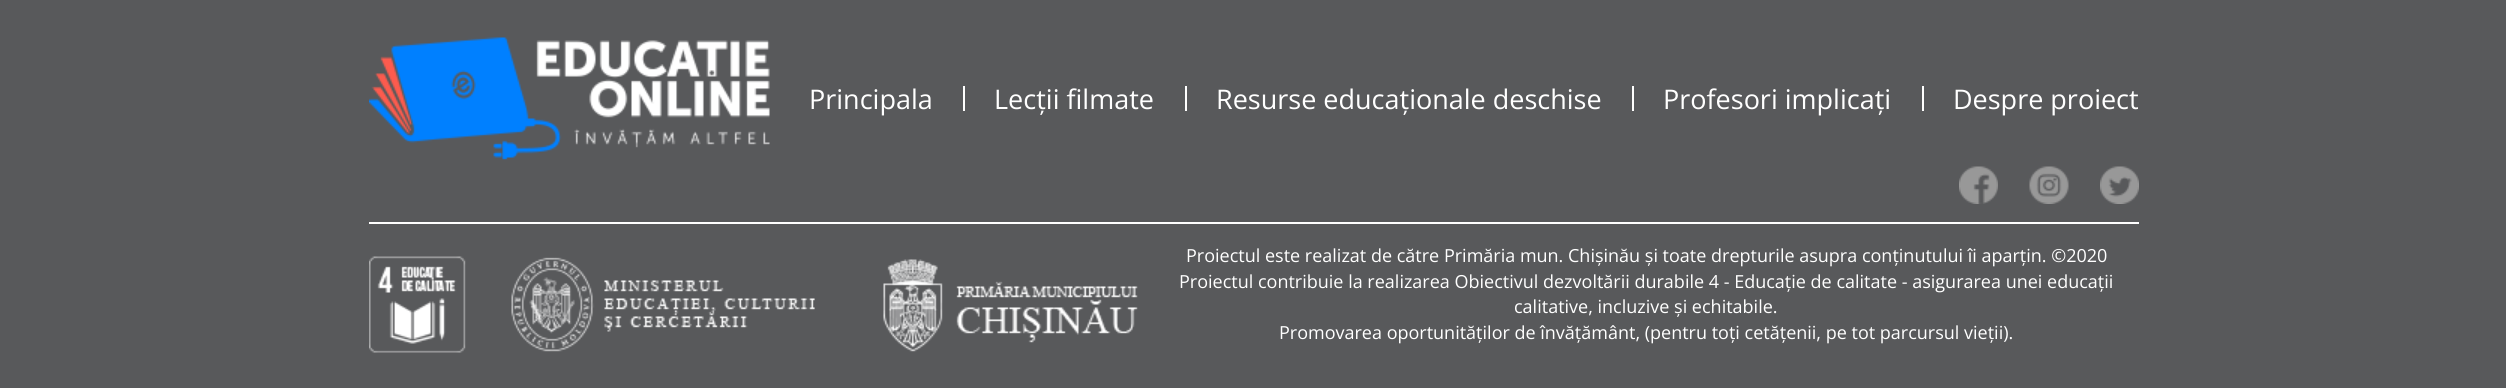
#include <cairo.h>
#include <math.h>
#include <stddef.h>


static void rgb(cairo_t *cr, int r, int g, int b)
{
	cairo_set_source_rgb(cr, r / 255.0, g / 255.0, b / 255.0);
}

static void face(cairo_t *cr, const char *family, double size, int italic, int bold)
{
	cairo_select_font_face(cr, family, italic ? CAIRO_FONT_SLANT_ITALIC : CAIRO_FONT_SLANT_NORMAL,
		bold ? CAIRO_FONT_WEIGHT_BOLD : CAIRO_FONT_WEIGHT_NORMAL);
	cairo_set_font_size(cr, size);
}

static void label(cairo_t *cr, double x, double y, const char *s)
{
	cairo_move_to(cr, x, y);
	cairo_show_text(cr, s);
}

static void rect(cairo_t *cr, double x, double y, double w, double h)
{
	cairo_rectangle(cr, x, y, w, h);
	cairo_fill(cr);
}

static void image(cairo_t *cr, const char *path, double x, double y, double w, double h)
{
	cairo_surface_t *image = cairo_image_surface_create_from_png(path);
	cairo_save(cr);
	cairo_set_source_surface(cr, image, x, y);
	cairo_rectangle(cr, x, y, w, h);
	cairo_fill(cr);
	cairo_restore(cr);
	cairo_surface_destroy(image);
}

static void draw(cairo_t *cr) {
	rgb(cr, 88, 89, 91);
	cairo_paint(cr);
	image(cr, "image0.png", 369, 37, 401, 123);
	face(cr, "Open Sans", 27, 0, 0);
	rgb(cr, 255, 255, 255);
	label(cr, 809, 109, "Principala");
	rect(cr, 963, 86, 2, 25);
	label(cr, 994, 109, "Lecții filmate");
	rect(cr, 1185, 86, 2, 25);
	label(cr, 1216, 109, "Resurse educaționale deschise");
	rect(cr, 1632, 86, 2, 25);
	label(cr, 1663, 109, "Profesori implicați");
	rect(cr, 1922, 86, 2, 25);
	label(cr, 1953, 109, "Despre proiect");
	rect(cr, 369, 222, 1770, 2);
	image(cr, "image1.png", 1959, 166, 39, 38);
	image(cr, "image2.png", 2029, 166, 40, 38);
	image(cr, "image3.png", 2100, 166, 39, 38);
	image(cr, "image4.png", 369, 256, 97, 97);
	image(cr, "image5.png", 511, 257, 304, 95);
	image(cr, "image6.png", 883, 259, 255, 93);
	face(cr, "Open Sans", 18, 0, 0);
	label(cr, 1186, 262, "Proiectul este realizat de către Primăria mun. Chișinău și toate drepturile asupra conținutului îi aparțin. ©2020");
	label(cr, 1179, 288, "Proiectul contribuie la realizarea Obiectivul dezvoltării durabile 4 - Educație de calitate - asigurarea unei educații");
	label(cr, 1514, 313, "calitative, incluzive și echitabile.");
	label(cr, 1279, 339, "Promovarea oportunităților de învățământ, (pentru toți cetățenii, pe tot parcursul vieții).");
}

int main(void) {
	cairo_surface_t *surface = cairo_image_surface_create(CAIRO_FORMAT_RGB24, 2506, 388);
	cairo_t *cr = cairo_create(surface);
	cairo_font_options_t *options = cairo_font_options_create();
	cairo_font_options_set_hint_metrics(options, CAIRO_HINT_METRICS_OFF);
	cairo_font_options_set_hint_style(options, CAIRO_HINT_STYLE_NONE);
	cairo_set_font_options(cr, options);
	cairo_set_miter_limit(cr, 4);
	draw(cr);
	cairo_surface_write_to_png(surface, "render.png");
	cairo_font_options_destroy(options);
	cairo_destroy(cr);
	cairo_surface_destroy(surface);
	return 0;
}
